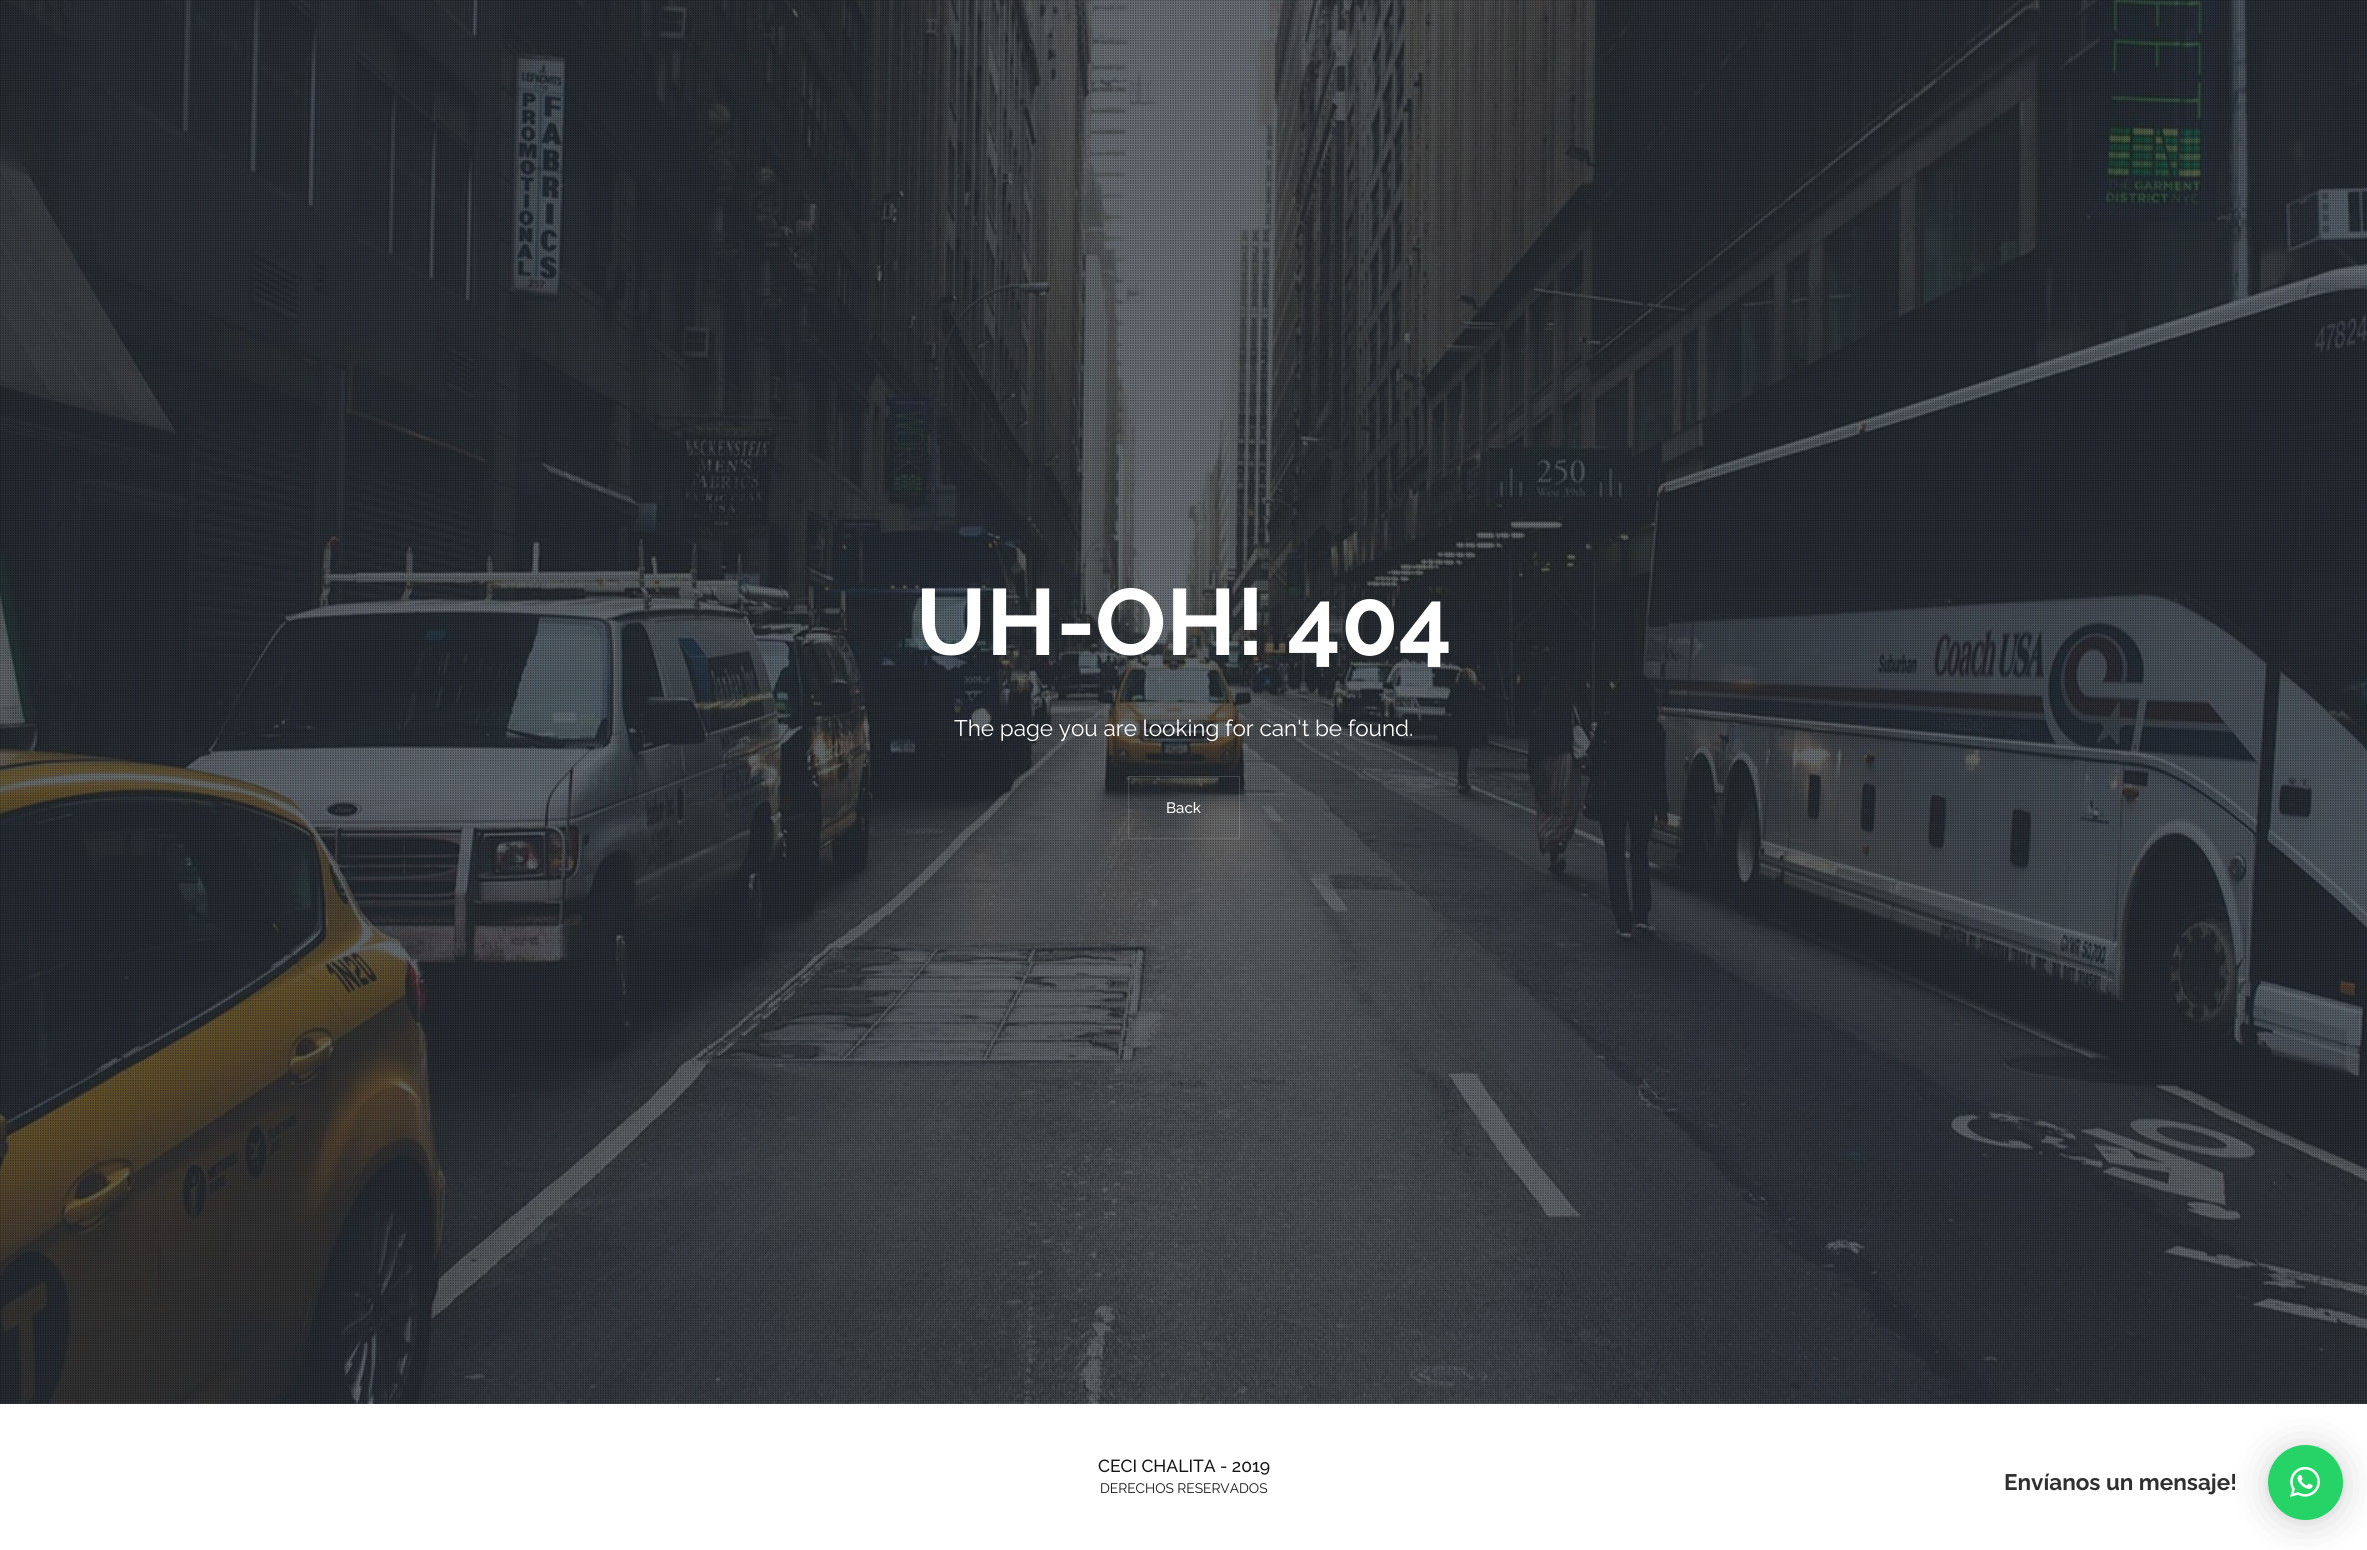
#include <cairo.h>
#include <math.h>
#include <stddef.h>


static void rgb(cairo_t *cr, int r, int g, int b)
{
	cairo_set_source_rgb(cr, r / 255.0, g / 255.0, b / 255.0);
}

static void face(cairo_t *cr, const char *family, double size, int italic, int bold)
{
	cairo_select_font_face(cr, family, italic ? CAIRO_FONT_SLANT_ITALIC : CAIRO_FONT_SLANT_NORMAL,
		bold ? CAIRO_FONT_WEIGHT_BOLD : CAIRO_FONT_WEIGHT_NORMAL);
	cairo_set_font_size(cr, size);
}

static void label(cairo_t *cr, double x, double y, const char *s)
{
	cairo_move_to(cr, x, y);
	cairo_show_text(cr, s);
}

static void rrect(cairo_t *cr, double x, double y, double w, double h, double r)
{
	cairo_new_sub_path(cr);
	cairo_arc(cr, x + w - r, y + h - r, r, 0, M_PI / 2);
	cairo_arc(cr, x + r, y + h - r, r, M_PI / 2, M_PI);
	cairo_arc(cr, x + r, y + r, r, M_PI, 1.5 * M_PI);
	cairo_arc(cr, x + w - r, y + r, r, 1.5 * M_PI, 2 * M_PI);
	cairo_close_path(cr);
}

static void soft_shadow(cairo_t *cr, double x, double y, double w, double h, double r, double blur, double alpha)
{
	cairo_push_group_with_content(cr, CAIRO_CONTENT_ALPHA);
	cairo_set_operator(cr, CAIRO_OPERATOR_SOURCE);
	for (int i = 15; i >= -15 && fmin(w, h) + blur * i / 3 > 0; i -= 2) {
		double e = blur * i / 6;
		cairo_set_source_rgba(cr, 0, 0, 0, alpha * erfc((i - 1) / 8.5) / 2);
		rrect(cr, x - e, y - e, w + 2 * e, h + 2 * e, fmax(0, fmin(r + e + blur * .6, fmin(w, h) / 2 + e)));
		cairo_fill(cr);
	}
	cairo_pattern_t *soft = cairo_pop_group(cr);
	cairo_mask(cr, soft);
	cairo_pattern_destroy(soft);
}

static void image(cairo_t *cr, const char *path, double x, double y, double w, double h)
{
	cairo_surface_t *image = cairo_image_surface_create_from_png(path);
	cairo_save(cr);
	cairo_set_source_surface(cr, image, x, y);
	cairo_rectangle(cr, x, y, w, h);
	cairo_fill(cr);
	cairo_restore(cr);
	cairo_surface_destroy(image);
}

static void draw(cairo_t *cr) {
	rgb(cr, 255, 255, 255);
	cairo_paint(cr);
	image(cr, "image0.png", 0, 0, 2367, 1404);
	image(cr, "image1.png", 0, 0, 2367, 1404);
	face(cr, "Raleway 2 Thin", 93.75, 0, 0);
	rgb(cr, 255, 255, 255);
	label(cr, 916, 655, "UH-OH! 404");
	face(cr, "Raleway", 22.5, 0, 0);
	label(cr, 954, 736, "The page you are looking for can't be found.");
	cairo_rectangle(cr, 1128.5, 776.5, 111, 62);
	cairo_set_source_rgba(cr, 1, 1, 1, 0.15);
	cairo_set_line_width(cr, 1);
	cairo_stroke(cr);
	face(cr, "Raleway Thin", 15, 0, 0);
	rgb(cr, 255, 255, 255);
	label(cr, 1166, 813, "Back");
	face(cr, "Raleway Thin", 17.5, 0, 0);
	rgb(cr, 21, 21, 21);
	label(cr, 1098, 1472, "CECI CHALITA - 2019");
	face(cr, "Raleway", 13.75, 0, 0);
	label(cr, 1100, 1493, "DERECHOS RESERVADOS");
	rgb(cr, 0, 0, 0);
	soft_shadow(cr, 2268, 1448, 75, 75, 37.5, 20, 0.16);
	soft_shadow(cr, 2268, 1446, 75, 75, 37.5, 4, 0.06);
	rgb(cr, 37, 211, 102);
	cairo_arc(cr, 2305.5, 1482.5, 37.5, 0, 2 * M_PI);
	cairo_fill(cr);
	face(cr, "Raleway 2 Thin", 22.5, 0, 0);
	rgb(cr, 48, 48, 48);
	label(cr, 2004, 1490, "Envíanos un mensaje!");
	image(cr, "image2.png", 2290, 1466, 30, 31);
}

int main(void) {
	cairo_surface_t *surface = cairo_image_surface_create(CAIRO_FORMAT_RGB24, 2367, 1550);
	cairo_t *cr = cairo_create(surface);
	cairo_font_options_t *options = cairo_font_options_create();
	cairo_font_options_set_hint_metrics(options, CAIRO_HINT_METRICS_OFF);
	cairo_font_options_set_hint_style(options, CAIRO_HINT_STYLE_NONE);
	cairo_set_font_options(cr, options);
	cairo_set_miter_limit(cr, 4);
	draw(cr);
	cairo_surface_write_to_png(surface, "render.png");
	cairo_font_options_destroy(options);
	cairo_destroy(cr);
	cairo_surface_destroy(surface);
	return 0;
}
